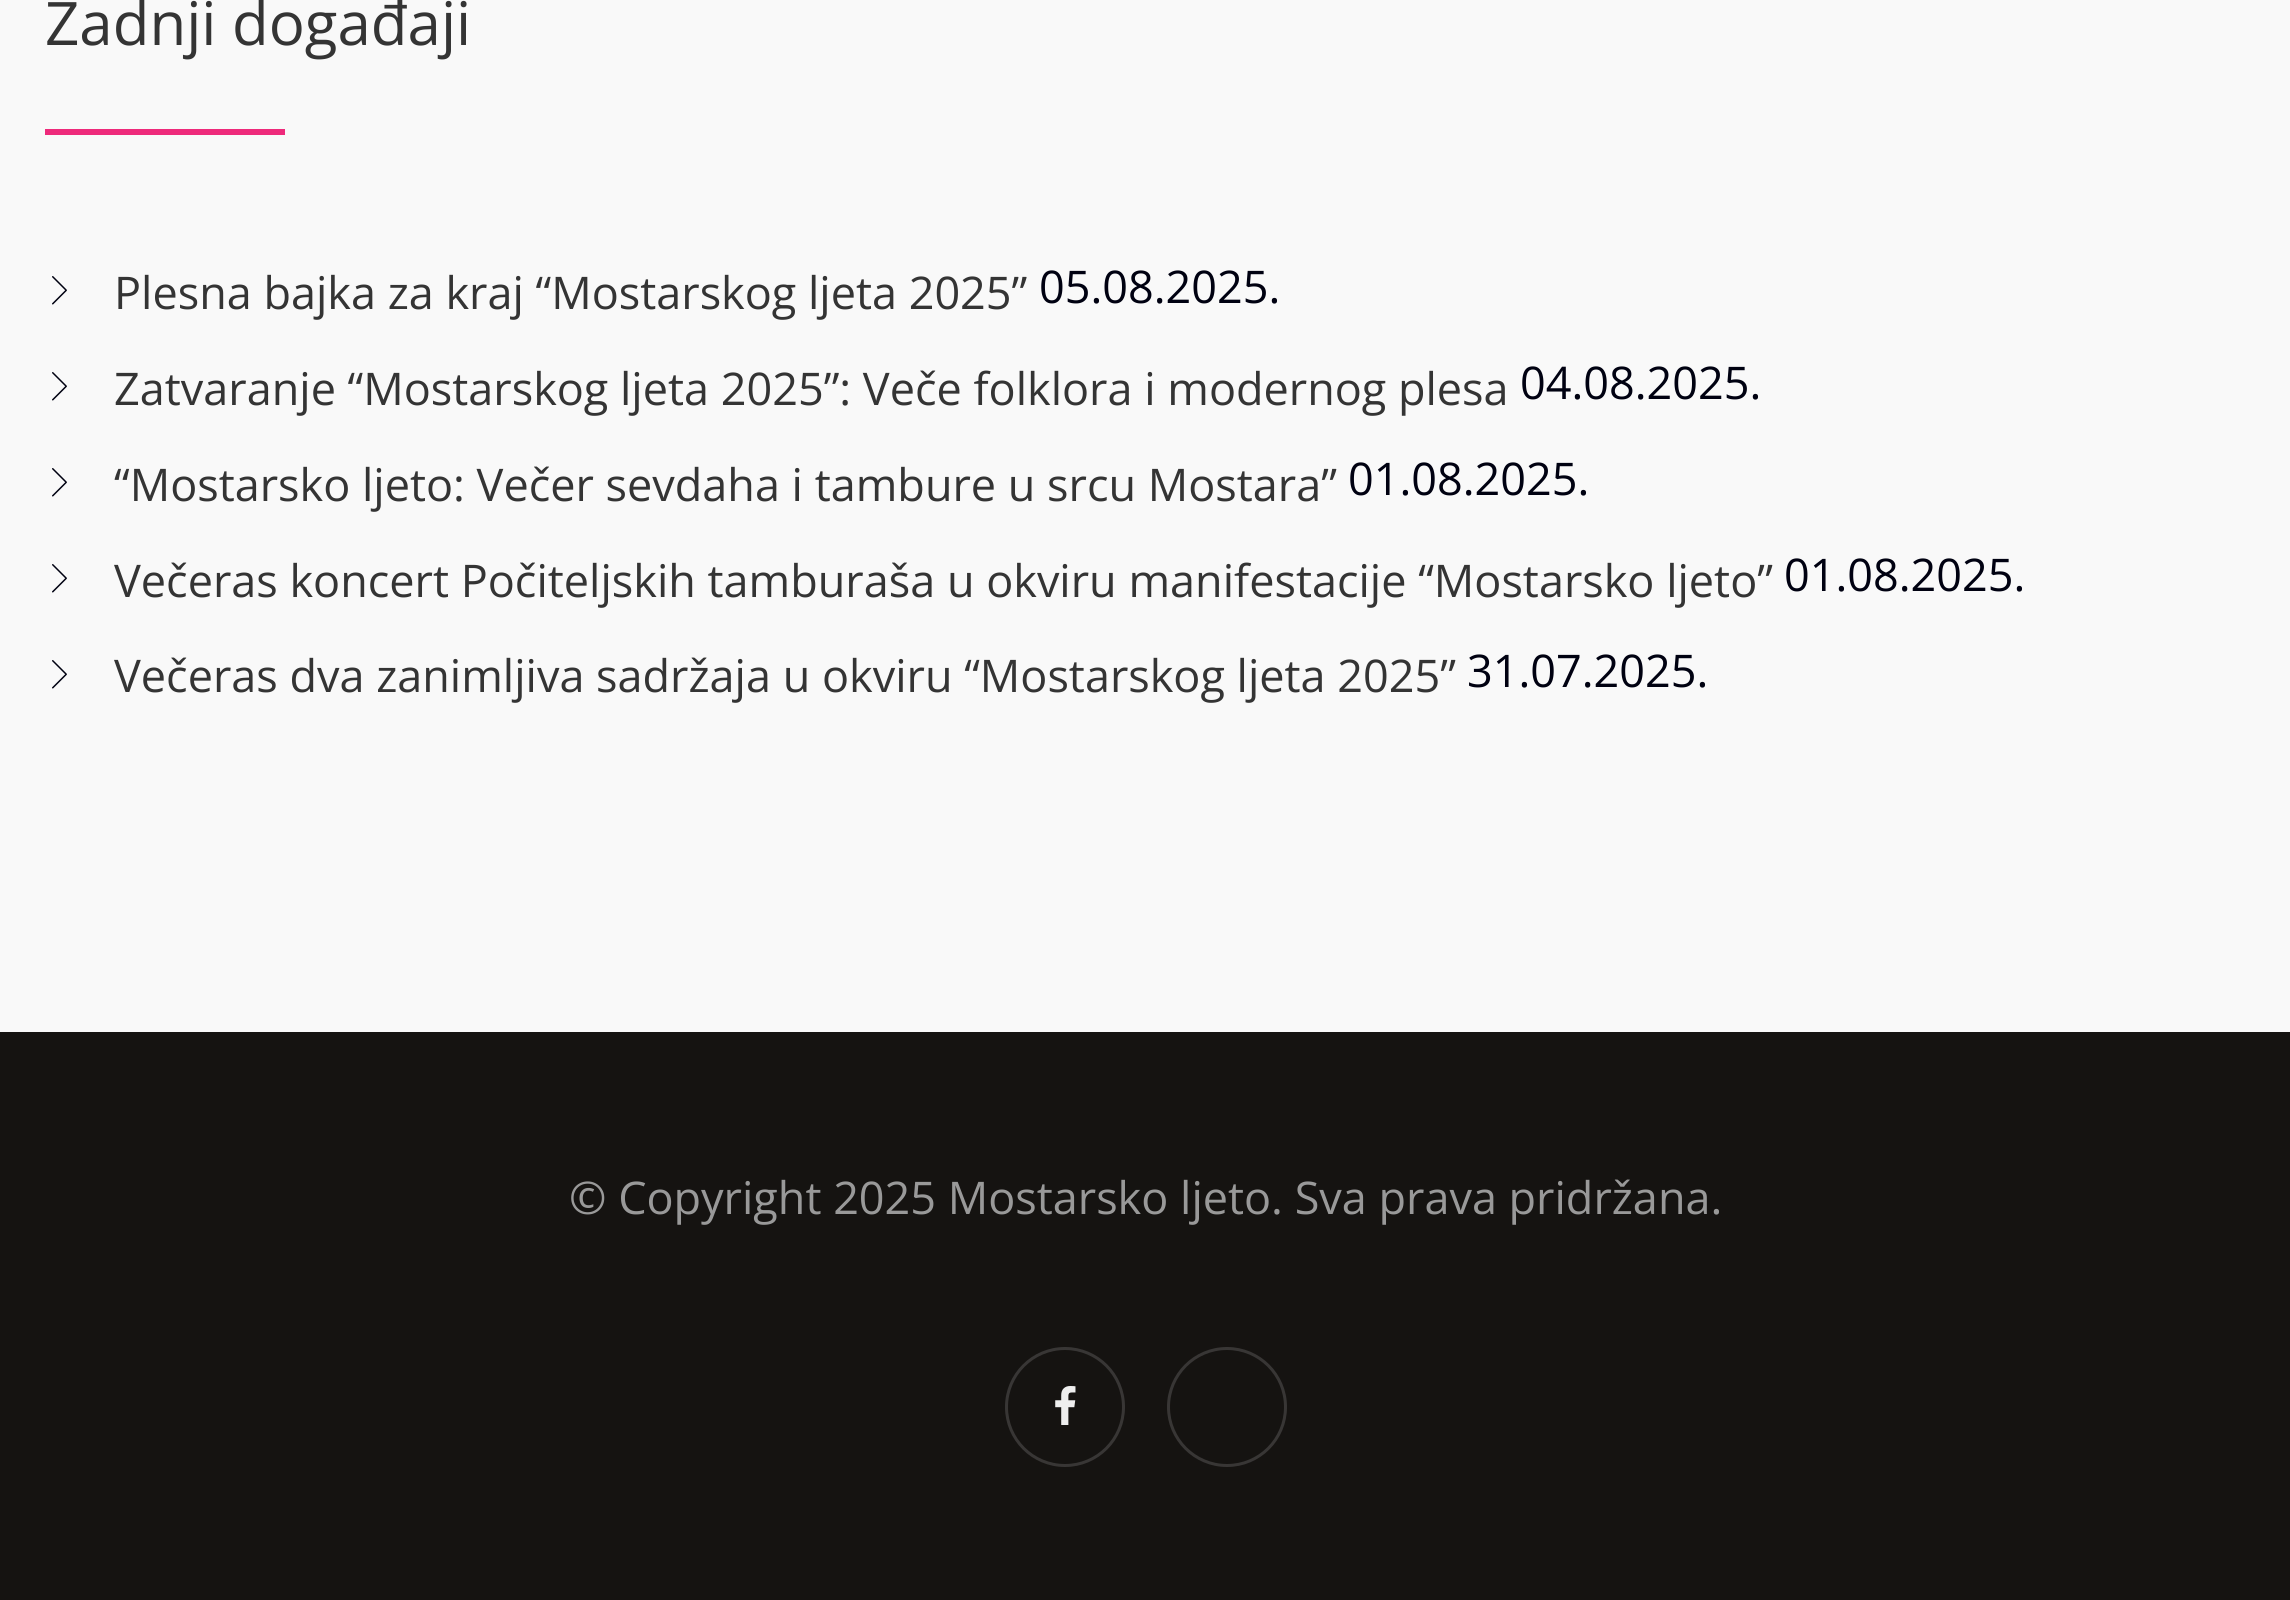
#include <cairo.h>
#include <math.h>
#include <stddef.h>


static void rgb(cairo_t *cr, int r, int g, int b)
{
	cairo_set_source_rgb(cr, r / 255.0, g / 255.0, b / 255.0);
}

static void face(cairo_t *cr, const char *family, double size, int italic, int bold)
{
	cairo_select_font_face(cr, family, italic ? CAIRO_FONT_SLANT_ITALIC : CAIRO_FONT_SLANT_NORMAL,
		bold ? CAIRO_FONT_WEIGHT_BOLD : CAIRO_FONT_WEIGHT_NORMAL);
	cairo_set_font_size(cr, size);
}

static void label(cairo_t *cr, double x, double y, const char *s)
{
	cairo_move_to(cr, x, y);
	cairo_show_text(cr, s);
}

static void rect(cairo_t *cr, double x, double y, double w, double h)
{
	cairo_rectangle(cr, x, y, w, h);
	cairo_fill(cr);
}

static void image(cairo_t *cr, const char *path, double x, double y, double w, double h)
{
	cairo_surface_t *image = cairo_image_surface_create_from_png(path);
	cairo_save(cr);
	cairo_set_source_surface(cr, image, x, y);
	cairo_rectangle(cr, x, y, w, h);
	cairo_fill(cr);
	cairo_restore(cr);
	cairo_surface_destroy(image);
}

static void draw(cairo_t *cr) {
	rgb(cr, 249, 249, 249);
	cairo_paint(cr);
	face(cr, "Open Sans", 60, 0, 0);
	rgb(cr, 52, 52, 52);
	label(cr, 45, 45, "Zadnji događaji");
	rgb(cr, 238, 42, 123);
	rect(cr, 45, 129, 240, 6);
	image(cr, "image0.png", 52, 276, 15, 29);
	face(cr, "Open Sans", 45, 0, 0);
	rgb(cr, 52, 52, 52);
	label(cr, 114, 309, "Plesna bajka za kraj “Mostarskog ljeta 2025”");
	rgb(cr, 0, 1, 17);
	label(cr, 1039, 303, "05.08.2025.");
	image(cr, "image0.png", 52, 372, 15, 29);
	rgb(cr, 52, 52, 52);
	label(cr, 114, 405, "Zatvaranje “Mostarskog ljeta 2025”: Veče folklora i modernog plesa");
	rgb(cr, 0, 1, 17);
	label(cr, 1520, 399, "04.08.2025.");
	image(cr, "image0.png", 52, 468, 15, 29);
	rgb(cr, 52, 52, 52);
	label(cr, 114, 501, "“Mostarsko ljeto: Večer sevdaha i tambure u srcu Mostara”");
	rgb(cr, 0, 1, 17);
	label(cr, 1348, 495, "01.08.2025.");
	image(cr, "image0.png", 52, 564, 15, 29);
	rgb(cr, 52, 52, 52);
	label(cr, 114, 597, "Večeras koncert Počiteljskih tamburaša u okviru manifestacije “Mostarsko ljeto”");
	rgb(cr, 0, 1, 17);
	label(cr, 1784, 591, "01.08.2025.");
	image(cr, "image0.png", 52, 660, 15, 29);
	rgb(cr, 52, 52, 52);
	label(cr, 114, 692, "Večeras dva zanimljiva sadržaja u okviru “Mostarskog ljeta 2025”");
	rgb(cr, 0, 1, 17);
	label(cr, 1467, 687, "31.07.2025.");
	rgb(cr, 21, 19, 17);
	rect(cr, 0, 1032, 2290, 568);
	rgb(cr, 153, 153, 153);
	label(cr, 569, 1214, "© Copyright 2025 Mostarsko ljeto. Sva prava pridržana.");
	cairo_new_path(cr);
	cairo_arc(cr, 1065, 1407, 58.5, 0, 2 * M_PI);
	rgb(cr, 56, 54, 53);
	cairo_set_line_width(cr, 3);
	cairo_stroke(cr);
	image(cr, "image1.png", 1055, 1386, 21, 39);
	cairo_arc(cr, 1227, 1407, 58.5, 0, 2 * M_PI);
	cairo_stroke(cr);
}

int main(void) {
	cairo_surface_t *surface = cairo_image_surface_create(CAIRO_FORMAT_RGB24, 2290, 1600);
	cairo_t *cr = cairo_create(surface);
	cairo_font_options_t *options = cairo_font_options_create();
	cairo_font_options_set_hint_metrics(options, CAIRO_HINT_METRICS_OFF);
	cairo_font_options_set_hint_style(options, CAIRO_HINT_STYLE_NONE);
	cairo_set_font_options(cr, options);
	cairo_set_miter_limit(cr, 4);
	draw(cr);
	cairo_surface_write_to_png(surface, "render.png");
	cairo_font_options_destroy(options);
	cairo_destroy(cr);
	cairo_surface_destroy(surface);
	return 0;
}
